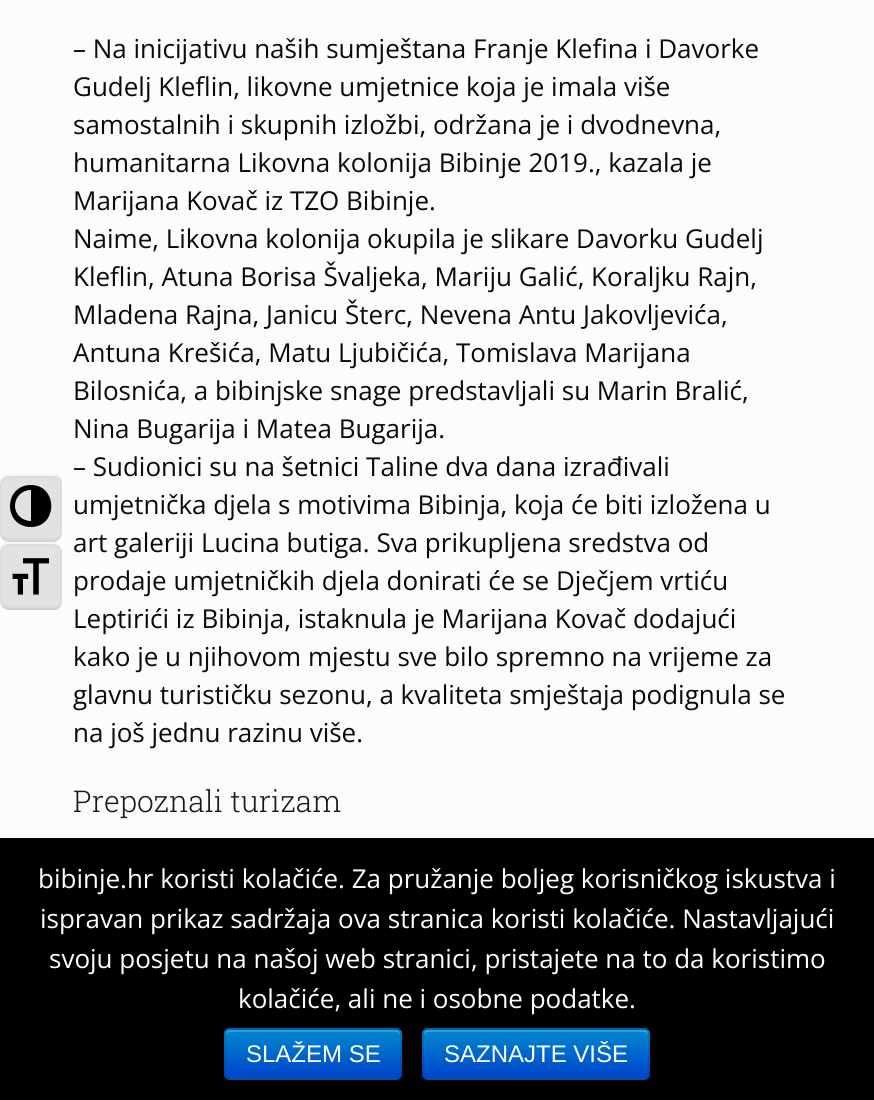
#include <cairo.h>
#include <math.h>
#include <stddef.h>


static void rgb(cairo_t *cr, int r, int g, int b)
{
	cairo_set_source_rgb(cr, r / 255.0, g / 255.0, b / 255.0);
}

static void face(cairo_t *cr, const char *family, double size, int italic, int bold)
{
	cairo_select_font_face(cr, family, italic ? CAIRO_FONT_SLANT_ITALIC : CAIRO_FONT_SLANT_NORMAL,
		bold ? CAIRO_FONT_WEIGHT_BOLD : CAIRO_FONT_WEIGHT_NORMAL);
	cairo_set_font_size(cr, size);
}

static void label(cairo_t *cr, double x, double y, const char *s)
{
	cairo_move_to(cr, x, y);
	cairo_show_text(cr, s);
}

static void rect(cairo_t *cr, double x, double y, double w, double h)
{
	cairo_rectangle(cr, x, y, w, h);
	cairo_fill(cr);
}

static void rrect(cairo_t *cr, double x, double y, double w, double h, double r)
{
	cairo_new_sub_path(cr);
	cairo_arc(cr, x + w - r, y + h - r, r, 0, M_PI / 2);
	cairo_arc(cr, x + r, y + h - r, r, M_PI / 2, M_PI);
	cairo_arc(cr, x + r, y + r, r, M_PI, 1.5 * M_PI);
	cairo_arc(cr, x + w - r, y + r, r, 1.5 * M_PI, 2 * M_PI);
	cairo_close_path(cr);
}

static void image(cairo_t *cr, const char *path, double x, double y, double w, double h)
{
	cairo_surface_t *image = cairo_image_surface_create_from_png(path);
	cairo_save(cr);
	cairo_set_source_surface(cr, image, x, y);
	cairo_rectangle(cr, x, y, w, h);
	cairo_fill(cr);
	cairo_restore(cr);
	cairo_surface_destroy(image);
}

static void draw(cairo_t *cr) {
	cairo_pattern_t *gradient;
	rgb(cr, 252, 252, 252);
	cairo_paint(cr);
	rgb(cr, 226, 226, 226);
	cairo_new_path(cr);
	cairo_move_to(cr, 10, 474);
	cairo_line_to(cr, 54, 474);
	cairo_curve_to(cr, 58.5, 474, 62, 477.5, 62, 482);
	cairo_line_to(cr, 62, 532);
	cairo_curve_to(cr, 62, 537.5, 57.5, 542, 52, 542);
	cairo_line_to(cr, 10, 542);
	cairo_curve_to(cr, 4.5, 542, 0, 537.5, 0, 532);
	cairo_line_to(cr, 0, 484);
	cairo_curve_to(cr, 0, 478.5, 4.5, 474, 10, 474);
	cairo_close_path(cr);
	cairo_fill(cr);
	cairo_new_path(cr);
	cairo_move_to(cr, 10, 477);
	cairo_line_to(cr, 54, 477);
	cairo_curve_to(cr, 58, 477, 61, 479, 61, 482);
	cairo_line_to(cr, 61, 532);
	cairo_curve_to(cr, 61, 536, 57, 539, 52, 539);
	cairo_line_to(cr, 10, 539);
	cairo_curve_to(cr, 5, 539, 1, 536, 1, 532);
	cairo_line_to(cr, 1, 484);
	cairo_curve_to(cr, 1, 480, 5, 477, 10, 477);
	cairo_close_path(cr);
	cairo_set_source_rgba(cr, 0, 0, 0, 0.03);
	cairo_stroke(cr);
	rgb(cr, 245, 245, 245);
	cairo_new_path(cr);
	cairo_move_to(cr, 10, 474);
	cairo_curve_to(cr, 4, 474, 0, 478, 0, 484);
	cairo_curve_to(cr, 0, 480, 4, 476, 10, 476);
	cairo_line_to(cr, 54, 476);
	cairo_curve_to(cr, 58, 476, 62, 479, 62, 482);
	cairo_curve_to(cr, 62, 478, 58, 474, 54, 474);
	cairo_close_path(cr);
	cairo_fill(cr);
	rgb(cr, 210, 210, 210);
	cairo_new_path(cr);
	cairo_move_to(cr, 52, 542);
	cairo_curve_to(cr, 58, 542, 62, 538, 62, 532);
	cairo_curve_to(cr, 62, 536, 58, 540, 52, 540);
	cairo_line_to(cr, 10, 540);
	cairo_curve_to(cr, 4, 540, 0, 536, 0, 532);
	cairo_curve_to(cr, 0, 538, 4, 542, 10, 542);
	cairo_close_path(cr);
	cairo_fill(cr);
	rgb(cr, 0, 0, 0);
	cairo_new_path(cr);
	cairo_move_to(cr, 31, 485);
	cairo_curve_to(cr, 3, 485, 3, 527, 31, 527);
	cairo_curve_to(cr, 58, 527, 58, 485, 31, 485);
	cairo_close_path(cr);
	cairo_move_to(cr, 15, 506);
	cairo_curve_to(cr, 15, 497, 22, 490, 31, 490);
	cairo_line_to(cr, 31, 521);
	cairo_curve_to(cr, 22, 521, 15, 514, 15, 506);
	cairo_close_path(cr);
	cairo_fill(cr);
	rgb(cr, 226, 226, 226);
	cairo_new_path(cr);
	cairo_move_to(cr, 10, 542);
	cairo_line_to(cr, 52, 542);
	cairo_curve_to(cr, 57.5, 542, 62, 546.5, 62, 552);
	cairo_line_to(cr, 62, 602);
	cairo_curve_to(cr, 62, 606.5, 58.5, 610, 54, 610);
	cairo_line_to(cr, 10, 610);
	cairo_curve_to(cr, 4.5, 610, 0, 605.5, 0, 600);
	cairo_line_to(cr, 0, 552);
	cairo_curve_to(cr, 0, 546.5, 4.5, 542, 10, 542);
	cairo_close_path(cr);
	cairo_fill(cr);
	cairo_new_path(cr);
	cairo_move_to(cr, 10, 545);
	cairo_line_to(cr, 52, 545);
	cairo_curve_to(cr, 57, 545, 61, 548, 61, 552);
	cairo_line_to(cr, 61, 602);
	cairo_curve_to(cr, 61, 605, 58, 607, 54, 607);
	cairo_line_to(cr, 10, 607);
	cairo_curve_to(cr, 5, 607, 1, 604, 1, 600);
	cairo_line_to(cr, 1, 552);
	cairo_curve_to(cr, 1, 548, 5, 545, 10, 545);
	cairo_close_path(cr);
	cairo_set_source_rgba(cr, 0, 0, 0, 0.03);
	cairo_stroke(cr);
	rgb(cr, 245, 245, 245);
	cairo_new_path(cr);
	cairo_move_to(cr, 10, 542);
	cairo_curve_to(cr, 4, 542, 0, 546, 0, 552);
	cairo_curve_to(cr, 0, 548, 4, 544, 10, 544);
	cairo_line_to(cr, 52, 544);
	cairo_curve_to(cr, 58, 544, 62, 548, 62, 552);
	cairo_curve_to(cr, 62, 546, 58, 542, 52, 542);
	cairo_close_path(cr);
	cairo_fill(cr);
	rgb(cr, 210, 210, 210);
	cairo_new_path(cr);
	cairo_move_to(cr, 54, 610);
	cairo_curve_to(cr, 58, 610, 62, 606, 62, 602);
	cairo_curve_to(cr, 62, 605, 58, 608, 54, 608);
	cairo_line_to(cr, 10, 608);
	cairo_curve_to(cr, 4, 608, 0, 604, 0, 600);
	cairo_curve_to(cr, 0, 606, 4, 610, 10, 610);
	cairo_close_path(cr);
	cairo_fill(cr);
	image(cr, "image0.png", 12, 558, 37, 37);
	face(cr, "Open Sans", 26, 0, 0);
	rgb(cr, 10, 10, 10);
	label(cr, 73, 58, "– Na inicijativu naših sumještana Franje Klefina i Davorke");
	label(cr, 73, 96, "Gudelj Kleflin, likovne umjetnice koja je imala više");
	label(cr, 73, 134, "samostalnih i skupnih izložbi, održana je i dvodnevna,");
	label(cr, 73, 172, "humanitarna Likovna kolonija Bibinje 2019., kazala je");
	label(cr, 73, 210, "Marijana Kovač iz TZO Bibinje.");
	label(cr, 73, 248, "Naime, Likovna kolonija okupila je slikare Davorku Gudelj");
	label(cr, 73, 286, "Kleflin, Atuna Borisa Švaljeka, Mariju Galić, Koraljku Rajn,");
	label(cr, 73, 324, "Mladena Rajna, Janicu Šterc, Nevena Antu Jakovljevića,");
	label(cr, 73, 362, "Antuna Krešića, Matu Ljubičića, Tomislava Marijana");
	label(cr, 73, 400, "Bilosnića, a bibinjske snage predstavljali su Marin Bralić,");
	label(cr, 73, 438, "Nina Bugarija i Matea Bugarija.");
	label(cr, 73, 476, "– Sudionici su na šetnici Taline dva dana izrađivali");
	label(cr, 73, 514, "umjetnička djela s motivima Bibinja, koja će biti izložena u");
	label(cr, 73, 552, "art galeriji Lucina butiga. Sva prikupljena sredstva od");
	label(cr, 73, 590, "prodaje umjetničkih djela donirati će se Dječjem vrtiću");
	label(cr, 73, 628, "Leptirići iz Bibinja, istaknula je Marijana Kovač dodajući");
	label(cr, 73, 666, "kako je u njihovom mjestu sve bilo spremno na vrijeme za");
	label(cr, 73, 704, "glavnu turističku sezonu, a kvaliteta smještaja podignula se");
	label(cr, 73, 742, "na još jednu razinu više.");
	face(cr, "Roboto Slab Light", 30, 0, 0);
	rgb(cr, 22, 25, 34);
	label(cr, 73, 812, "Prepoznali turizam");
	rgb(cr, 0, 0, 0);
	rect(cr, 0, 838, 874, 262);
	face(cr, "Open Sans", 26, 0, 0);
	rgb(cr, 255, 255, 255);
	label(cr, 38, 888, "bibinje.hr koristi kolačiće. Za pružanje boljeg korisničkog iskustva i");
	label(cr, 40, 928, "ispravan prikaz sadržaja ova stranica koristi kolačiće. Nastavljajući");
	label(cr, 49, 968, "svoju posjetu na našoj web stranici, pristajete na to da koristimo");
	label(cr, 238, 1008, "kolačiće, ali ne i osobne podatke.");
	rgb(cr, 0, 109, 204);
	rrect(cr, 224, 1028, 178, 52, 6);
	cairo_fill(cr);
	cairo_save(cr);
	rrect(cr, 224, 1028, 178, 52, 6);
	cairo_clip(cr);
	gradient = cairo_pattern_create_linear(313, 1030, 313, 1078);
	cairo_pattern_add_color_stop_rgba(gradient, 0, 0, 0.533, 0.8, 1);
	cairo_pattern_add_color_stop_rgba(gradient, 1, 0, 0.267, 0.8, 1);
	cairo_set_source(cr, gradient);
	cairo_pattern_destroy(gradient);
	rect(cr, 224, 1030, 178, 48);
	cairo_restore(cr);
	cairo_set_source_rgba(cr, 1, 1, 1, 0.2);
	cairo_new_path(cr);
	cairo_move_to(cr, 230, 1032);
	cairo_line_to(cr, 396, 1032);
	cairo_curve_to(cr, 398, 1032, 400, 1034, 400, 1036);
	cairo_line_to(cr, 400, 1034);
	cairo_curve_to(cr, 400, 1032, 398, 1030, 396, 1030);
	cairo_line_to(cr, 230, 1030);
	cairo_curve_to(cr, 228, 1030, 226, 1032, 226, 1034);
	cairo_line_to(cr, 226, 1036);
	cairo_curve_to(cr, 226, 1034, 228, 1032, 230, 1032);
	cairo_close_path(cr);
	cairo_fill(cr);
	cairo_new_path(cr);
	cairo_move_to(cr, 399.5, 1077.5);
	cairo_curve_to(cr, 398.5, 1078.5, 397.5, 1079, 396, 1079);
	cairo_line_to(cr, 230, 1079);
	cairo_curve_to(cr, 228.5, 1079, 227.5, 1078.5, 226.5, 1077.5);
	cairo_set_source_rgba(cr, 0, 0, 0, 0.25);
	cairo_stroke(cr);
	cairo_new_path(cr);
	cairo_move_to(cr, 226.5, 1077.5);
	cairo_curve_to(cr, 225.5, 1076.5, 225, 1075.5, 225, 1074);
	cairo_line_to(cr, 225, 1034);
	cairo_curve_to(cr, 225, 1032.5, 225.5, 1031.5, 226.5, 1030.5);
	cairo_curve_to(cr, 227.5, 1029.5, 228.5, 1029, 230, 1029);
	cairo_line_to(cr, 396, 1029);
	cairo_curve_to(cr, 397.5, 1029, 398.5, 1029.5, 399.5, 1030.5);
	cairo_curve_to(cr, 400.5, 1031.5, 401, 1032.5, 401, 1034);
	cairo_line_to(cr, 401, 1074);
	cairo_curve_to(cr, 401, 1075.5, 400.5, 1076.5, 399.5, 1077.5);
	cairo_set_source_rgba(cr, 0, 0, 0, 0.1);
	cairo_stroke(cr);
	face(cr, "Liberation Sans", 24, 0, 0);
	rgb(cr, 255, 255, 255);
	label(cr, 246, 1062, "SLAŽEM SE");
	rgb(cr, 0, 109, 204);
	rrect(cr, 422, 1028, 228, 52, 6);
	cairo_fill(cr);
	cairo_save(cr);
	rrect(cr, 422, 1028, 228, 52, 6);
	cairo_clip(cr);
	gradient = cairo_pattern_create_linear(536, 1030, 536, 1078);
	cairo_pattern_add_color_stop_rgba(gradient, 0, 0, 0.533, 0.8, 1);
	cairo_pattern_add_color_stop_rgba(gradient, 1, 0, 0.267, 0.8, 1);
	cairo_set_source(cr, gradient);
	cairo_pattern_destroy(gradient);
	rect(cr, 422, 1030, 228, 48);
	cairo_restore(cr);
	cairo_set_source_rgba(cr, 1, 1, 1, 0.2);
	cairo_new_path(cr);
	cairo_move_to(cr, 428, 1032);
	cairo_line_to(cr, 644, 1032);
	cairo_curve_to(cr, 646, 1032, 648, 1034, 648, 1036);
	cairo_curve_to(cr, 648, 1033, 648, 1031, 645, 1030);
	cairo_line_to(cr, 428, 1030);
	cairo_curve_to(cr, 424, 1030, 424, 1033, 424, 1036);
	cairo_curve_to(cr, 424, 1034, 426, 1032, 428, 1032);
	cairo_close_path(cr);
	cairo_fill(cr);
	cairo_new_path(cr);
	cairo_move_to(cr, 647.5, 1077.5);
	cairo_curve_to(cr, 646.5, 1078.5, 645.5, 1079, 644, 1079);
	cairo_line_to(cr, 428, 1079);
	cairo_curve_to(cr, 426.5, 1079, 425.5, 1078.5, 424.5, 1077.5);
	cairo_set_source_rgba(cr, 0, 0, 0, 0.25);
	cairo_stroke(cr);
	cairo_new_path(cr);
	cairo_move_to(cr, 424.5, 1077.5);
	cairo_curve_to(cr, 423.5, 1076.5, 423, 1075.5, 423, 1074);
	cairo_line_to(cr, 423, 1034);
	cairo_curve_to(cr, 423, 1032.5, 423.5, 1031.5, 424.5, 1030.5);
	cairo_curve_to(cr, 425.5, 1029.5, 426.5, 1029, 428, 1029);
	cairo_line_to(cr, 644, 1029);
	cairo_curve_to(cr, 645.5, 1029, 646.5, 1029.5, 647.5, 1030.5);
	cairo_curve_to(cr, 648.5, 1031.5, 649, 1032.5, 649, 1034);
	cairo_line_to(cr, 649, 1074);
	cairo_curve_to(cr, 649, 1075.5, 648.5, 1076.5, 647.5, 1077.5);
	cairo_set_source_rgba(cr, 0, 0, 0, 0.1);
	cairo_stroke(cr);
	rgb(cr, 255, 255, 255);
	label(cr, 444, 1062, "SAZNAJTE VIŠE");
}

int main(void) {
	cairo_surface_t *surface = cairo_image_surface_create(CAIRO_FORMAT_RGB24, 874, 1100);
	cairo_t *cr = cairo_create(surface);
	cairo_font_options_t *options = cairo_font_options_create();
	cairo_font_options_set_hint_metrics(options, CAIRO_HINT_METRICS_OFF);
	cairo_font_options_set_hint_style(options, CAIRO_HINT_STYLE_NONE);
	cairo_set_font_options(cr, options);
	cairo_set_miter_limit(cr, 4);
	draw(cr);
	cairo_surface_write_to_png(surface, "render.png");
	cairo_font_options_destroy(options);
	cairo_destroy(cr);
	cairo_surface_destroy(surface);
	return 0;
}
